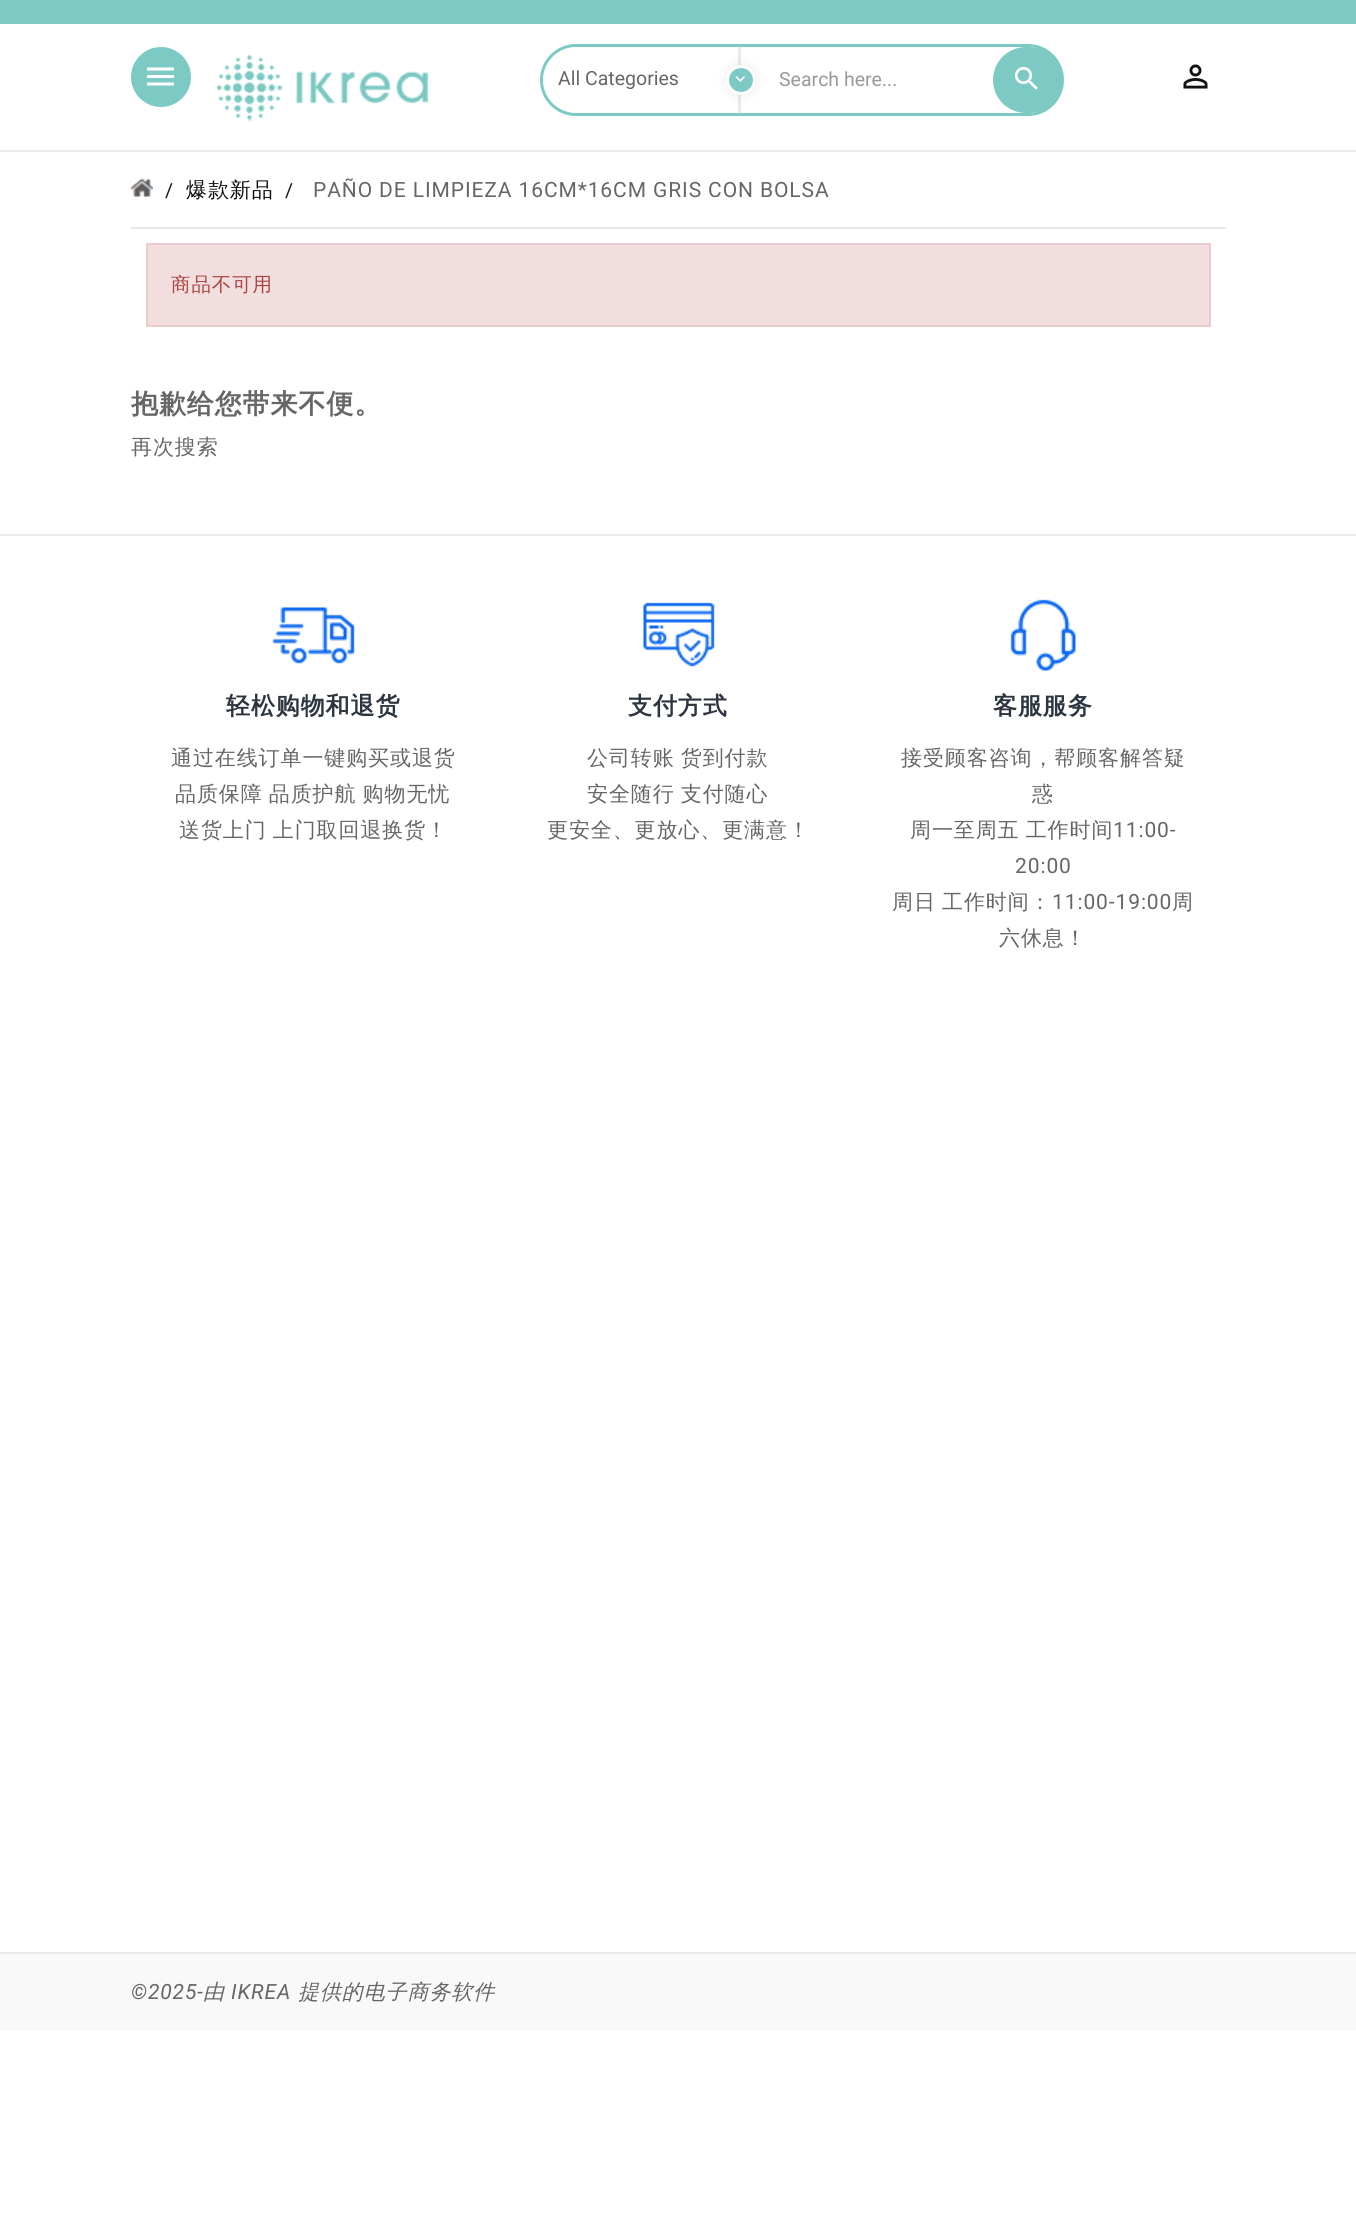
#include <cairo.h>
#include <math.h>
#include <stddef.h>


static void rgb(cairo_t *cr, int r, int g, int b)
{
	cairo_set_source_rgb(cr, r / 255.0, g / 255.0, b / 255.0);
}

static void face(cairo_t *cr, const char *family, double size, int italic, int bold)
{
	cairo_select_font_face(cr, family, italic ? CAIRO_FONT_SLANT_ITALIC : CAIRO_FONT_SLANT_NORMAL,
		bold ? CAIRO_FONT_WEIGHT_BOLD : CAIRO_FONT_WEIGHT_NORMAL);
	cairo_set_font_size(cr, size);
}

static void label(cairo_t *cr, double x, double y, const char *s)
{
	cairo_move_to(cr, x, y);
	cairo_show_text(cr, s);
}

static void tracked(cairo_t *cr, double x, double y, const char *s, double letter, double word)
{
	cairo_move_to(cr, x, y);
	while (*s) {
		char ch[5] = {0};
		int n = 0;
		do ch[n++] = *s++; while ((*s & 0xC0) == 0x80);
		cairo_show_text(cr, ch);
		cairo_rel_move_to(cr, letter + word * (*ch == ' '), 0);
	}
}

static void rect(cairo_t *cr, double x, double y, double w, double h)
{
	cairo_rectangle(cr, x, y, w, h);
	cairo_fill(cr);
}

static void rrect(cairo_t *cr, double x, double y, double w, double h, double r)
{
	cairo_new_sub_path(cr);
	cairo_arc(cr, x + w - r, y + h - r, r, 0, M_PI / 2);
	cairo_arc(cr, x + r, y + h - r, r, M_PI / 2, M_PI);
	cairo_arc(cr, x + r, y + r, r, M_PI, 1.5 * M_PI);
	cairo_arc(cr, x + w - r, y + r, r, 1.5 * M_PI, 2 * M_PI);
	cairo_close_path(cr);
}

static void soft_shadow(cairo_t *cr, double x, double y, double w, double h, double r, double blur, double alpha)
{
	cairo_push_group_with_content(cr, CAIRO_CONTENT_ALPHA);
	cairo_set_operator(cr, CAIRO_OPERATOR_SOURCE);
	for (int i = 15; i >= -15 && fmin(w, h) + blur * i / 3 > 0; i -= 2) {
		double e = blur * i / 6;
		cairo_set_source_rgba(cr, 0, 0, 0, alpha * erfc((i - 1) / 8.5) / 2);
		rrect(cr, x - e, y - e, w + 2 * e, h + 2 * e, fmax(0, fmin(r + e + blur * .6, fmin(w, h) / 2 + e)));
		cairo_fill(cr);
	}
	cairo_pattern_t *soft = cairo_pop_group(cr);
	cairo_mask(cr, soft);
	cairo_pattern_destroy(soft);
}

static void image(cairo_t *cr, const char *path, double x, double y, double w, double h)
{
	cairo_surface_t *image = cairo_image_surface_create_from_png(path);
	cairo_save(cr);
	cairo_set_source_surface(cr, image, x, y);
	cairo_rectangle(cr, x, y, w, h);
	cairo_fill(cr);
	cairo_restore(cr);
	cairo_surface_destroy(image);
}

static void draw(cairo_t *cr) {
	rgb(cr, 255, 255, 255);
	cairo_paint(cr);
	rgb(cr, 125, 202, 196);
	rect(cr, 0, 0, 1356, 24);
	rgb(cr, 234, 234, 234);
	rect(cr, 0, 150, 1356, 2);
	rgb(cr, 125, 202, 196);
	cairo_arc(cr, 161, 77, 30, 0, 2 * M_PI);
	cairo_fill(cr);
	image(cr, "image0.png", 147, 67, 27, 19);
	image(cr, "image1.png", 215, 54, 214, 68);
	rrect(cr, 541.5, 45.5, 521, 69, 34.5);
	cairo_set_line_width(cr, 3);
	cairo_stroke(cr);
	face(cr, "Roboto", 19.5, 0, 0);
	rgb(cr, 102, 102, 102);
	label(cr, 558, 85, "All Categories");
	rgb(cr, 234, 234, 234);
	rect(cr, 738, 47, 3, 66);
	rgb(cr, 0, 0, 0);
	soft_shadow(cr, 726, 65, 30, 30, 15, 6, 0.08);
	rgb(cr, 125, 202, 196);
	cairo_arc(cr, 741, 80, 13.5, 0, 2 * M_PI);
	cairo_fill_preserve(cr);
	rgb(cr, 255, 255, 255);
	cairo_stroke(cr);
	image(cr, "image2.png", 735, 76, 10, 6);
	rgb(cr, 153, 153, 153);
	label(cr, 779, 86, "Search here...");
	rgb(cr, 125, 202, 196);
	rrect(cr, 993, 47, 69, 66, 33);
	cairo_fill(cr);
	image(cr, "image3.png", 1014, 66, 24, 24);
	image(cr, "image4.png", 1183, 64, 25, 25);
	rgb(cr, 234, 234, 234);
	rect(cr, 131, 227, 1095, 2);
	image(cr, "image5.png", 130, 178, 23, 19);
	rgb(cr, 17, 17, 17);
	tracked(cr, 165, 197, "/", 0.9, 0);
	face(cr, "WenQuanYi Zen Hei Medium", 21, 0, 0);
	tracked(cr, 186, 197, "爆款新品", 0.9, 0);
	face(cr, "Roboto", 19.5, 0, 0);
	tracked(cr, 285, 197, "/", 0.9, 0);
	face(cr, "Roboto", 21, 0, 0);
	rgb(cr, 102, 102, 102);
	tracked(cr, 313, 197, "PAÑO DE LIMPIEZA 16CM*16CM GRIS CON BOLSA", 0.9, 0);
	rgb(cr, 242, 222, 222);
	cairo_rectangle(cr, 147, 244, 1063, 82);
	cairo_fill_preserve(cr);
	rgb(cr, 235, 204, 204);
	cairo_set_line_width(cr, 2);
	cairo_stroke(cr);
	face(cr, "WenQuanYi Zen Hei Medium", 19.5, 0, 0);
	rgb(cr, 169, 68, 66);
	tracked(cr, 171, 291, "商品不可用", 0.9, 0);
	face(cr, "WenQuanYi Zen Hei", 27, 0, 1);
	rgb(cr, 102, 102, 102);
	tracked(cr, 131, 413, "抱歉给您带来不便。", 0.9, 0);
	face(cr, "WenQuanYi Zen Hei Medium", 21, 0, 0);
	tracked(cr, 131, 454, "再次搜索", 0.9, 0);
	rgb(cr, 234, 234, 234);
	rect(cr, 0, 534, 1356, 2);
	image(cr, "image6.png", 272, 607, 83, 57);
	face(cr, "WenQuanYi Zen Hei", 24, 0, 1);
	rgb(cr, 45, 54, 64);
	tracked(cr, 226, 714, "轻松购物和退货", 0.9, 0);
	face(cr, "WenQuanYi Zen Hei Medium", 21, 0, 0);
	rgb(cr, 102, 102, 102);
	tracked(cr, 171, 765, "通过在线订单一键购买或退货", 0.9, 0);
	tracked(cr, 175, 801, "品质保障 品质护航 购物无忧", 0.9, -1);
	tracked(cr, 179, 837, "送货上门 上门取回退换货！", 0.9, -1);
	image(cr, "image7.png", 643, 602, 72, 65);
	face(cr, "WenQuanYi Zen Hei", 24, 0, 1);
	rgb(cr, 45, 54, 64);
	tracked(cr, 628, 714, "支付方式", 0.9, 0);
	face(cr, "WenQuanYi Zen Hei Medium", 21, 0, 0);
	rgb(cr, 102, 102, 102);
	tracked(cr, 587, 765, "公司转账 货到付款", 0.9, -1);
	tracked(cr, 587, 801, "安全随行 支付随心", 0.9, -1);
	tracked(cr, 547, 837, "更安全、更放心、更满意！", 0.9, 0);
	image(cr, "image8.png", 1010, 599, 66, 72);
	face(cr, "WenQuanYi Zen Hei", 24, 0, 1);
	rgb(cr, 45, 54, 64);
	tracked(cr, 993, 714, "客服服务", 0.9, 0);
	face(cr, "WenQuanYi Zen Hei Medium", 21, 0, 0);
	rgb(cr, 102, 102, 102);
	tracked(cr, 901, 765, "接受顾客咨询，帮顾客解答疑", 0.9, 0);
	tracked(cr, 1032, 801, "惑", 0.9, 0);
	tracked(cr, 910, 837, "周一至周五 工作时间", 0.9, -1);
	face(cr, "Roboto", 21, 0, 0);
	tracked(cr, 1113, 837, "11:00-", 0.9, 0);
	tracked(cr, 1015, 873, "20:00", 0.9, 0);
	face(cr, "WenQuanYi Zen Hei Medium", 21, 0, 0);
	tracked(cr, 892, 909, "周日 工作时间：", 0.9, -1);
	face(cr, "Roboto", 21, 0, 0);
	tracked(cr, 1052, 909, "11:00-19:00", 0.9, 0);
	face(cr, "WenQuanYi Zen Hei Medium", 21, 0, 0);
	tracked(cr, 1172, 909, "周", 0.9, 0);
	tracked(cr, 999, 945, "六休息！", 0.9, 0);
	rgb(cr, 249, 249, 249);
	rect(cr, 0, 1954, 1356, 77);
	rgb(cr, 234, 234, 234);
	rect(cr, 0, 1952, 1356, 2);
	face(cr, "Roboto", 21, 1, 0);
	rgb(cr, 102, 102, 102);
	tracked(cr, 131, 1999, "©2025-", 0.9, 0);
	face(cr, "WenQuanYi Zen Hei Medium", 21, 1, 0);
	tracked(cr, 203, 1999, "由", 0.9, 0);
	face(cr, "Roboto", 21, 1, 0);
	tracked(cr, 231, 1999, "IKREA", 0.9, 0);
	face(cr, "WenQuanYi Zen Hei Medium", 21, 1, 0);
	tracked(cr, 298, 1999, "提供的电子商务软件", 0.9, 0);
}

int main(void) {
	cairo_surface_t *surface = cairo_image_surface_create(CAIRO_FORMAT_RGB24, 1356, 2231);
	cairo_t *cr = cairo_create(surface);
	cairo_font_options_t *options = cairo_font_options_create();
	cairo_font_options_set_hint_metrics(options, CAIRO_HINT_METRICS_OFF);
	cairo_font_options_set_hint_style(options, CAIRO_HINT_STYLE_NONE);
	cairo_set_font_options(cr, options);
	cairo_set_miter_limit(cr, 4);
	draw(cr);
	cairo_surface_write_to_png(surface, "render.png");
	cairo_font_options_destroy(options);
	cairo_destroy(cr);
	cairo_surface_destroy(surface);
	return 0;
}
